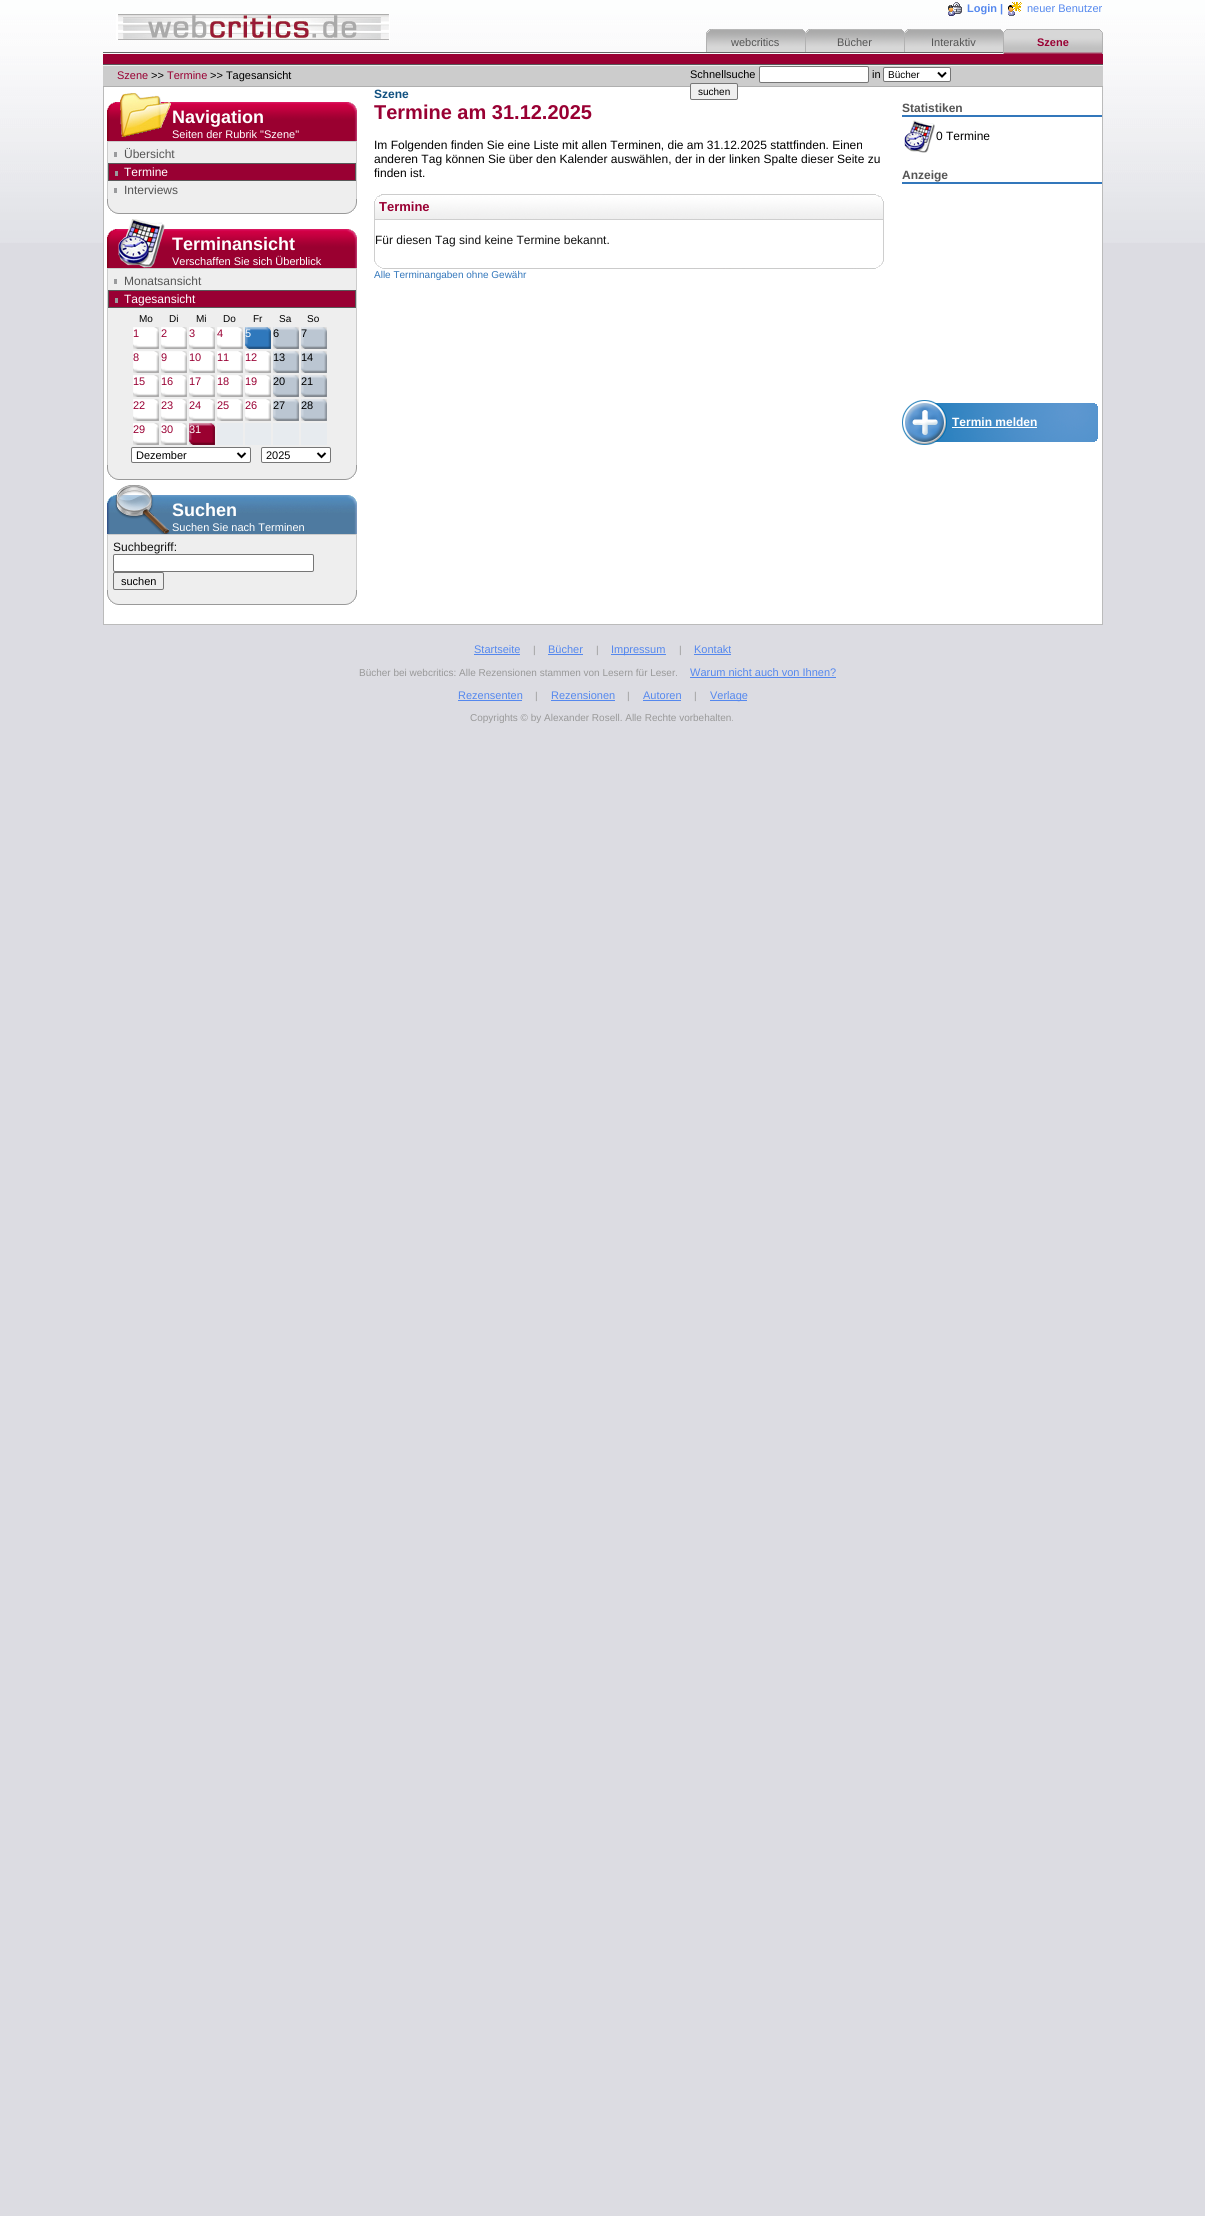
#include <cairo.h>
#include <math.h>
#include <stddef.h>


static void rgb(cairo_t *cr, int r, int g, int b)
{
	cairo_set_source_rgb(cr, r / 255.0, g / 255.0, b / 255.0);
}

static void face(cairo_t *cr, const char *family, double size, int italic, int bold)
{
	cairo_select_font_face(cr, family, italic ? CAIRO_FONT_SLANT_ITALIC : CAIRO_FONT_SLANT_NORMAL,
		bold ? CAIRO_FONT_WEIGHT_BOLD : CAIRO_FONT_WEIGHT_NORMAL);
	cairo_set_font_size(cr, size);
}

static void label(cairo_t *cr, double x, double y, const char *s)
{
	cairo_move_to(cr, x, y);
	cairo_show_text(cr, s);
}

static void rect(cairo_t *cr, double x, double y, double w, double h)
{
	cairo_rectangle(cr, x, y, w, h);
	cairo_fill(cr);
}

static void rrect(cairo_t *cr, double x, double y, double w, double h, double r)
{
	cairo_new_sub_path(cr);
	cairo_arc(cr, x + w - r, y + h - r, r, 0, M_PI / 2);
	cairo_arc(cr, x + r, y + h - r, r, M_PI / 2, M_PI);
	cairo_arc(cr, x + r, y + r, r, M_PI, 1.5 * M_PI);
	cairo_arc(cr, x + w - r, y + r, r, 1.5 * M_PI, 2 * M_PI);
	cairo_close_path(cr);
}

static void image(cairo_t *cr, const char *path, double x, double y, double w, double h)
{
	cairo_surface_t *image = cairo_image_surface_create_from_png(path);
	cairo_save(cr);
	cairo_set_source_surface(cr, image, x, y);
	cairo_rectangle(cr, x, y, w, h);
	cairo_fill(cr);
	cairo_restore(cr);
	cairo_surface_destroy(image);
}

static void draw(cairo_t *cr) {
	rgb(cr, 220, 220, 226);
	cairo_paint(cr);
	image(cr, "image0.png", 0, 0, 1205, 243);
	rgb(cr, 102, 102, 102);
	rect(cr, 103, 52, 900, 1);
	image(cr, "image1.png", 948, 2, 14, 14);
	face(cr, "Liberation Sans", 11, 0, 1);
	rgb(cr, 85, 136, 238);
	label(cr, 967, 12, "Login |");
	image(cr, "image2.png", 1008, 2, 14, 14);
	face(cr, "Liberation Sans", 11, 0, 0);
	label(cr, 1027, 12, "neuer Benutzer");
	image(cr, "image3.png", 116, 14, 274, 26);
	image(cr, "image4.png", 706, 29, 99, 23);
	rgb(cr, 85, 85, 85);
	label(cr, 731, 46, "webcritics");
	image(cr, "image5.png", 805, 29, 99, 23);
	label(cr, 837, 46, "Bücher");
	image(cr, "image4.png", 904, 29, 99, 23);
	label(cr, 931, 46, "Interaktiv");
	image(cr, "image6.png", 1003, 29, 100, 25);
	face(cr, "Liberation Sans", 11, 0, 1);
	rgb(cr, 153, 0, 51);
	label(cr, 1037, 46, "Szene");
	rect(cr, 103, 54, 1000, 10);
	rgb(cr, 89, 89, 89);
	rect(cr, 103, 64, 1000, 1);
	rgb(cr, 204, 204, 204);
	rect(cr, 103, 66, 1000, 20);
	rgb(cr, 238, 238, 238);
	rect(cr, 103, 65, 1000, 1);
	rgb(cr, 175, 175, 175);
	rect(cr, 103, 86, 1000, 1);
	face(cr, "Liberation Sans", 11, 0, 0);
	rgb(cr, 153, 0, 51);
	label(cr, 117, 79, "Szene");
	rgb(cr, 0, 0, 0);
	label(cr, 151, 79, ">>");
	rgb(cr, 153, 0, 51);
	label(cr, 167, 79, "Termine");
	rgb(cr, 0, 0, 0);
	label(cr, 210, 79, ">> Tagesansicht");
	label(cr, 690, 78, "Schnellsuche");
	rgb(cr, 255, 255, 255);
	rrect(cr, 759.5, 66.5, 109, 16, 1.5);
	cairo_fill_preserve(cr);
	rgb(cr, 118, 118, 118);
	cairo_set_line_width(cr, 1);
	cairo_stroke(cr);
	rgb(cr, 0, 0, 0);
	label(cr, 872, 78, "in");
	rgb(cr, 255, 255, 255);
	rrect(cr, 883.5, 67.5, 67, 14, 1.5);
	cairo_fill_preserve(cr);
	rgb(cr, 118, 118, 118);
	cairo_stroke(cr);
	cairo_new_path(cr);
	cairo_move_to(cr, 938, 72.5);
	cairo_line_to(cr, 942, 76.5);
	cairo_line_to(cr, 946, 72.5);
	rgb(cr, 0, 0, 0);
	cairo_set_line_width(cr, 2);
	cairo_stroke(cr);
	face(cr, "Liberation Sans", 10, 0, 0);
	label(cr, 888, 78, "Bücher");
	rgb(cr, 255, 255, 255);
	rect(cr, 104, 87, 998, 537);
	rgb(cr, 239, 239, 239);
	rrect(cr, 690.5, 83.5, 47, 16, 1.5);
	cairo_fill_preserve(cr);
	rgb(cr, 118, 118, 118);
	cairo_set_line_width(cr, 1);
	cairo_stroke(cr);
	rgb(cr, 0, 0, 0);
	label(cr, 698, 95, "suchen");
	rgb(cr, 187, 187, 187);
	rect(cr, 1102, 87, 1, 538);
	rect(cr, 103, 624, 1000, 1);
	rect(cr, 103, 87, 1, 538);
	image(cr, "image7.png", 107, 93, 250, 48);
	face(cr, "Liberation Sans", 18, 0, 1);
	rgb(cr, 255, 255, 255);
	label(cr, 172, 123, "Navigation");
	face(cr, "Liberation Sans", 11, 0, 0);
	label(cr, 172, 138, "Seiten der Rubrik \"Szene\"");
	rgb(cr, 238, 238, 238);
	rect(cr, 108, 142, 248, 57);
	rgb(cr, 204, 204, 204);
	rect(cr, 107, 141, 250, 1);
	rect(cr, 356, 141, 1, 58);
	rect(cr, 107, 141, 1, 58);
	rgb(cr, 154, 155, 157);
	rect(cr, 114, 152, 3, 5);
	face(cr, "Liberation Sans", 12, 0, 0);
	rgb(cr, 85, 85, 85);
	label(cr, 124, 158, "Übersicht");
	rgb(cr, 153, 0, 51);
	rect(cr, 109, 164, 246, 16);
	rgb(cr, 154, 155, 157);
	rect(cr, 115, 171, 3, 5);
	cairo_rectangle(cr, 108.5, 163.5, 247, 17);
	rgb(cr, 89, 89, 89);
	cairo_stroke(cr);
	rgb(cr, 255, 255, 255);
	label(cr, 124, 176, "Termine");
	rgb(cr, 154, 155, 157);
	rect(cr, 114, 188, 3, 5);
	rgb(cr, 85, 85, 85);
	label(cr, 124, 194, "Interviews");
	image(cr, "image8.png", 107, 199, 250, 15);
	image(cr, "image9.png", 107, 219, 250, 49);
	face(cr, "Liberation Sans", 18, 0, 1);
	rgb(cr, 255, 255, 255);
	label(cr, 172, 250, "Terminansicht");
	face(cr, "Liberation Sans", 11, 0, 0);
	label(cr, 172, 265, "Verschaffen Sie sich Überblick");
	rgb(cr, 238, 238, 238);
	rect(cr, 108, 269, 248, 196);
	rgb(cr, 204, 204, 204);
	rect(cr, 107, 268, 250, 1);
	rect(cr, 356, 268, 1, 197);
	rect(cr, 107, 268, 1, 197);
	rgb(cr, 154, 155, 157);
	rect(cr, 114, 279, 3, 5);
	face(cr, "Liberation Sans", 12, 0, 0);
	rgb(cr, 85, 85, 85);
	label(cr, 124, 285, "Monatsansicht");
	rgb(cr, 153, 0, 51);
	rect(cr, 109, 291, 246, 16);
	rgb(cr, 154, 155, 157);
	rect(cr, 115, 298, 3, 5);
	cairo_rectangle(cr, 108.5, 290.5, 247, 17);
	rgb(cr, 89, 89, 89);
	cairo_stroke(cr);
	rgb(cr, 255, 255, 255);
	label(cr, 124, 303, "Tagesansicht");
	face(cr, "Liberation Sans", 10, 0, 0);
	rgb(cr, 0, 0, 0);
	label(cr, 139, 322, "Mo");
	label(cr, 169, 322, "Di");
	label(cr, 196, 322, "Mi");
	label(cr, 223, 322, "Do");
	label(cr, 253, 322, "Fr");
	label(cr, 279, 322, "Sa");
	label(cr, 307, 322, "So");
	image(cr, "image10.png", 133, 327, 26, 22);
	face(cr, "Liberation Sans", 11, 0, 0);
	rgb(cr, 153, 0, 51);
	label(cr, 133, 337, "1");
	image(cr, "image10.png", 161, 327, 26, 22);
	label(cr, 161, 337, "2");
	image(cr, "image10.png", 189, 327, 26, 22);
	label(cr, 189, 337, "3");
	image(cr, "image10.png", 217, 327, 26, 22);
	label(cr, 217, 337, "4");
	image(cr, "image11.png", 245, 327, 26, 22);
	rgb(cr, 255, 255, 255);
	label(cr, 245, 337, "5");
	image(cr, "image12.png", 273, 327, 26, 22);
	rgb(cr, 0, 0, 0);
	label(cr, 273, 337, "6");
	image(cr, "image12.png", 301, 327, 26, 22);
	label(cr, 301, 337, "7");
	image(cr, "image10.png", 133, 351, 26, 22);
	rgb(cr, 153, 0, 51);
	label(cr, 133, 361, "8");
	image(cr, "image10.png", 161, 351, 26, 22);
	label(cr, 161, 361, "9");
	image(cr, "image10.png", 189, 351, 26, 22);
	label(cr, 189, 361, "10");
	image(cr, "image10.png", 217, 351, 26, 22);
	label(cr, 217, 361, "11");
	image(cr, "image10.png", 245, 351, 26, 22);
	label(cr, 245, 361, "12");
	image(cr, "image12.png", 273, 351, 26, 22);
	rgb(cr, 0, 0, 0);
	label(cr, 273, 361, "13");
	image(cr, "image12.png", 301, 351, 26, 22);
	label(cr, 301, 361, "14");
	image(cr, "image10.png", 133, 375, 26, 22);
	rgb(cr, 153, 0, 51);
	label(cr, 133, 385, "15");
	image(cr, "image10.png", 161, 375, 26, 22);
	label(cr, 161, 385, "16");
	image(cr, "image10.png", 189, 375, 26, 22);
	label(cr, 189, 385, "17");
	image(cr, "image10.png", 217, 375, 26, 22);
	label(cr, 217, 385, "18");
	image(cr, "image10.png", 245, 375, 26, 22);
	label(cr, 245, 385, "19");
	image(cr, "image12.png", 273, 375, 26, 22);
	rgb(cr, 0, 0, 0);
	label(cr, 273, 385, "20");
	image(cr, "image12.png", 301, 375, 26, 22);
	label(cr, 301, 385, "21");
	image(cr, "image10.png", 133, 399, 26, 22);
	rgb(cr, 153, 0, 51);
	label(cr, 133, 409, "22");
	image(cr, "image10.png", 161, 399, 26, 22);
	label(cr, 161, 409, "23");
	image(cr, "image10.png", 189, 399, 26, 22);
	label(cr, 189, 409, "24");
	image(cr, "image10.png", 217, 399, 26, 22);
	label(cr, 217, 409, "25");
	image(cr, "image10.png", 245, 399, 26, 22);
	label(cr, 245, 409, "26");
	image(cr, "image12.png", 273, 399, 26, 22);
	rgb(cr, 0, 0, 0);
	label(cr, 273, 409, "27");
	image(cr, "image12.png", 301, 399, 26, 22);
	label(cr, 301, 409, "28");
	image(cr, "image10.png", 133, 423, 26, 22);
	rgb(cr, 153, 0, 51);
	label(cr, 133, 433, "29");
	image(cr, "image10.png", 161, 423, 26, 22);
	label(cr, 161, 433, "30");
	image(cr, "image13.png", 189, 423, 26, 22);
	rgb(cr, 255, 255, 255);
	label(cr, 189, 433, "31");
	rgb(cr, 231, 235, 239);
	rect(cr, 217, 423, 26, 22);
	rect(cr, 245, 423, 26, 22);
	rect(cr, 273, 423, 26, 22);
	rect(cr, 301, 423, 26, 22);
	rgb(cr, 255, 255, 255);
	rrect(cr, 131.5, 447.5, 119, 15, 1.5);
	cairo_fill_preserve(cr);
	rgb(cr, 118, 118, 118);
	cairo_stroke(cr);
	cairo_new_path(cr);
	cairo_move_to(cr, 237.5, 453);
	cairo_line_to(cr, 241.5, 457);
	cairo_line_to(cr, 245.5, 453);
	rgb(cr, 0, 0, 0);
	cairo_set_line_width(cr, 2);
	cairo_stroke(cr);
	label(cr, 136, 459, "Dezember");
	rgb(cr, 255, 255, 255);
	rrect(cr, 261.5, 447.5, 69, 15, 1.5);
	cairo_fill_preserve(cr);
	rgb(cr, 118, 118, 118);
	cairo_set_line_width(cr, 1);
	cairo_stroke(cr);
	cairo_new_path(cr);
	cairo_move_to(cr, 317.5, 453);
	cairo_line_to(cr, 321.5, 457);
	cairo_line_to(cr, 325.5, 453);
	rgb(cr, 0, 0, 0);
	cairo_set_line_width(cr, 2);
	cairo_stroke(cr);
	label(cr, 266, 459, "2025");
	image(cr, "image8.png", 107, 465, 250, 15);
	image(cr, "image14.png", 107, 485, 250, 49);
	face(cr, "Liberation Sans", 18, 0, 1);
	rgb(cr, 255, 255, 255);
	label(cr, 172, 516, "Suchen");
	face(cr, "Liberation Sans", 11, 0, 0);
	label(cr, 172, 531, "Suchen Sie nach Terminen");
	rgb(cr, 238, 238, 238);
	rect(cr, 108, 535, 248, 55);
	rgb(cr, 204, 204, 204);
	rect(cr, 107, 534, 250, 1);
	rect(cr, 356, 534, 1, 56);
	rect(cr, 107, 534, 1, 56);
	face(cr, "Liberation Sans", 12, 0, 0);
	rgb(cr, 17, 17, 17);
	label(cr, 113, 551, "Suchbegriff:");
	rgb(cr, 255, 255, 255);
	rrect(cr, 113.5, 554.5, 200, 17, 1.5);
	cairo_fill_preserve(cr);
	rgb(cr, 118, 118, 118);
	cairo_set_line_width(cr, 1);
	cairo_stroke(cr);
	rrect(cr, 113.5, 572.5, 50, 17, 1.5);
	cairo_stroke(cr);
	face(cr, "Liberation Sans", 11, 0, 0);
	rgb(cr, 0, 0, 0);
	label(cr, 121, 585, "suchen");
	image(cr, "image8.png", 107, 590, 250, 15);
	face(cr, "Liberation Sans", 12, 0, 1);
	rgb(cr, 16, 80, 128);
	label(cr, 374, 98, "Szene");
	face(cr, "Liberation Sans", 20, 0, 1);
	rgb(cr, 153, 0, 51);
	label(cr, 374, 119, "Termine am 31.12.2025");
	face(cr, "Liberation Sans", 12, 0, 0);
	rgb(cr, 0, 0, 0);
	label(cr, 374, 149, "Im Folgenden finden Sie eine Liste mit allen Terminen, die am 31.12.2025 stattfinden. Einen");
	label(cr, 374, 163, "anderen Tag können Sie über den Kalender auswählen, der in der linken Spalte dieser Seite zu");
	label(cr, 374, 177, "finden ist.");
	image(cr, "image15.png", 374, 194, 510, 26);
	face(cr, "Liberation Sans", 13, 0, 1);
	rgb(cr, 153, 0, 51);
	label(cr, 379, 211, "Termine");
	rgb(cr, 206, 206, 206);
	rect(cr, 883, 219, 1, 42);
	rect(cr, 374, 219, 1, 42);
	face(cr, "Liberation Sans", 12, 0, 0);
	rgb(cr, 17, 17, 17);
	label(cr, 375, 244, "Für diesen Tag sind keine Termine bekannt.");
	image(cr, "image16.png", 374, 261, 510, 8);
	face(cr, "Liberation Sans", 10, 0, 0);
	rgb(cr, 51, 119, 187);
	label(cr, 374, 278, "Alle Terminangaben ohne Gewähr");
	rect(cr, 902, 115, 200, 2);
	face(cr, "Liberation Sans", 12, 0, 1);
	rgb(cr, 85, 85, 85);
	label(cr, 902, 112, "Statistiken");
	image(cr, "image17.png", 904, 120, 31, 33);
	face(cr, "Liberation Sans", 12, 0, 0);
	rgb(cr, 0, 0, 0);
	label(cr, 936, 140, "0 Termine");
	rgb(cr, 51, 119, 187);
	rect(cr, 902, 182, 200, 2);
	face(cr, "Liberation Sans", 12, 0, 1);
	rgb(cr, 85, 85, 85);
	label(cr, 902, 179, "Anzeige");
	image(cr, "image18.png", 902, 400, 196, 45);
	rgb(cr, 255, 255, 255);
	label(cr, 952, 426, "Termin melden");
	rect(cr, 952, 427, 85, 1);
	face(cr, "Liberation Sans", 11, 0, 0);
	rgb(cr, 85, 136, 238);
	label(cr, 474, 653, "Startseite");
	rect(cr, 474, 654, 46, 1);
	face(cr, "Liberation Sans", 10, 0, 0);
	rgb(cr, 153, 153, 153);
	label(cr, 533, 653, "|");
	face(cr, "Liberation Sans", 11, 0, 0);
	rgb(cr, 85, 136, 238);
	label(cr, 548, 653, "Bücher");
	rect(cr, 548, 654, 35, 1);
	face(cr, "Liberation Sans", 10, 0, 0);
	rgb(cr, 153, 153, 153);
	label(cr, 596, 653, "|");
	rgb(cr, 85, 136, 238);
	rect(cr, 611, 654, 55, 1);
	face(cr, "Liberation Sans", 11, 0, 0);
	label(cr, 611, 653, "Impressum");
	face(cr, "Liberation Sans", 10, 0, 0);
	rgb(cr, 153, 153, 153);
	label(cr, 679, 653, "|");
	face(cr, "Liberation Sans", 11, 0, 0);
	rgb(cr, 85, 136, 238);
	label(cr, 694, 653, "Kontakt");
	rect(cr, 694, 654, 37, 1);
	face(cr, "Liberation Sans", 10, 0, 0);
	rgb(cr, 153, 153, 153);
	label(cr, 359, 676, "Bücher bei webcritics: Alle Rezensionen stammen von Lesern für Leser.");
	face(cr, "Liberation Sans", 11, 0, 0);
	rgb(cr, 85, 136, 238);
	label(cr, 690, 676, "Warum nicht auch von Ihnen?");
	rect(cr, 690, 677, 146, 1);
	label(cr, 458, 699, "Rezensenten");
	rect(cr, 458, 700, 64, 1);
	face(cr, "Liberation Sans", 10, 0, 0);
	rgb(cr, 153, 153, 153);
	label(cr, 535, 699, "|");
	face(cr, "Liberation Sans", 11, 0, 0);
	rgb(cr, 85, 136, 238);
	label(cr, 551, 699, "Rezensionen");
	rect(cr, 551, 700, 64, 1);
	face(cr, "Liberation Sans", 10, 0, 0);
	rgb(cr, 153, 153, 153);
	label(cr, 627, 699, "|");
	face(cr, "Liberation Sans", 11, 0, 0);
	rgb(cr, 85, 136, 238);
	label(cr, 643, 699, "Autoren");
	rect(cr, 643, 700, 38, 1);
	face(cr, "Liberation Sans", 10, 0, 0);
	rgb(cr, 153, 153, 153);
	label(cr, 694, 699, "|");
	rgb(cr, 85, 136, 238);
	rect(cr, 710, 700, 37, 1);
	face(cr, "Liberation Sans", 11, 0, 0);
	label(cr, 710, 699, "Verlage");
	face(cr, "Liberation Sans", 10, 0, 0);
	rgb(cr, 153, 153, 153);
	label(cr, 470, 721, "Copyrights © by Alexander Rosell. Alle Rechte vorbehalten.");
}

int main(void) {
	cairo_surface_t *surface = cairo_image_surface_create(CAIRO_FORMAT_RGB24, 1205, 2216);
	cairo_t *cr = cairo_create(surface);
	cairo_font_options_t *options = cairo_font_options_create();
	cairo_font_options_set_hint_metrics(options, CAIRO_HINT_METRICS_OFF);
	cairo_font_options_set_hint_style(options, CAIRO_HINT_STYLE_NONE);
	cairo_set_font_options(cr, options);
	cairo_set_miter_limit(cr, 4);
	draw(cr);
	cairo_surface_write_to_png(surface, "render.png");
	cairo_font_options_destroy(options);
	cairo_destroy(cr);
	cairo_surface_destroy(surface);
	return 0;
}
